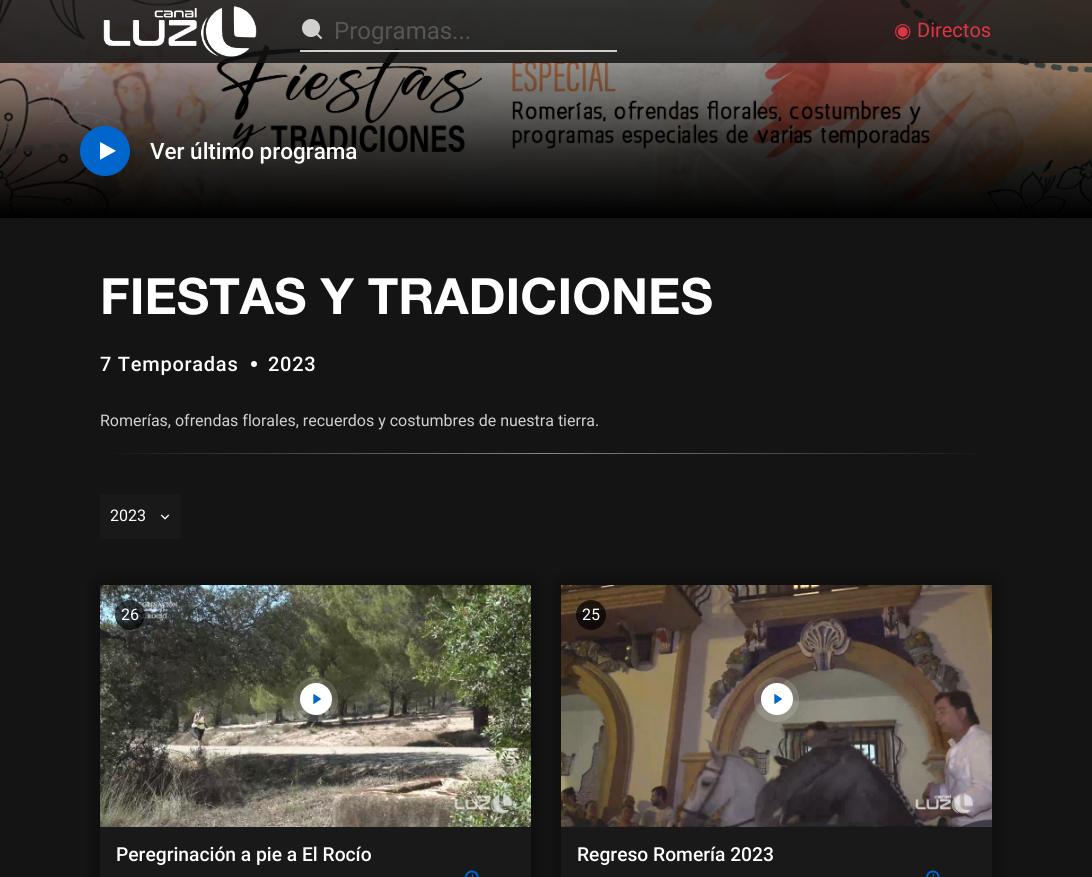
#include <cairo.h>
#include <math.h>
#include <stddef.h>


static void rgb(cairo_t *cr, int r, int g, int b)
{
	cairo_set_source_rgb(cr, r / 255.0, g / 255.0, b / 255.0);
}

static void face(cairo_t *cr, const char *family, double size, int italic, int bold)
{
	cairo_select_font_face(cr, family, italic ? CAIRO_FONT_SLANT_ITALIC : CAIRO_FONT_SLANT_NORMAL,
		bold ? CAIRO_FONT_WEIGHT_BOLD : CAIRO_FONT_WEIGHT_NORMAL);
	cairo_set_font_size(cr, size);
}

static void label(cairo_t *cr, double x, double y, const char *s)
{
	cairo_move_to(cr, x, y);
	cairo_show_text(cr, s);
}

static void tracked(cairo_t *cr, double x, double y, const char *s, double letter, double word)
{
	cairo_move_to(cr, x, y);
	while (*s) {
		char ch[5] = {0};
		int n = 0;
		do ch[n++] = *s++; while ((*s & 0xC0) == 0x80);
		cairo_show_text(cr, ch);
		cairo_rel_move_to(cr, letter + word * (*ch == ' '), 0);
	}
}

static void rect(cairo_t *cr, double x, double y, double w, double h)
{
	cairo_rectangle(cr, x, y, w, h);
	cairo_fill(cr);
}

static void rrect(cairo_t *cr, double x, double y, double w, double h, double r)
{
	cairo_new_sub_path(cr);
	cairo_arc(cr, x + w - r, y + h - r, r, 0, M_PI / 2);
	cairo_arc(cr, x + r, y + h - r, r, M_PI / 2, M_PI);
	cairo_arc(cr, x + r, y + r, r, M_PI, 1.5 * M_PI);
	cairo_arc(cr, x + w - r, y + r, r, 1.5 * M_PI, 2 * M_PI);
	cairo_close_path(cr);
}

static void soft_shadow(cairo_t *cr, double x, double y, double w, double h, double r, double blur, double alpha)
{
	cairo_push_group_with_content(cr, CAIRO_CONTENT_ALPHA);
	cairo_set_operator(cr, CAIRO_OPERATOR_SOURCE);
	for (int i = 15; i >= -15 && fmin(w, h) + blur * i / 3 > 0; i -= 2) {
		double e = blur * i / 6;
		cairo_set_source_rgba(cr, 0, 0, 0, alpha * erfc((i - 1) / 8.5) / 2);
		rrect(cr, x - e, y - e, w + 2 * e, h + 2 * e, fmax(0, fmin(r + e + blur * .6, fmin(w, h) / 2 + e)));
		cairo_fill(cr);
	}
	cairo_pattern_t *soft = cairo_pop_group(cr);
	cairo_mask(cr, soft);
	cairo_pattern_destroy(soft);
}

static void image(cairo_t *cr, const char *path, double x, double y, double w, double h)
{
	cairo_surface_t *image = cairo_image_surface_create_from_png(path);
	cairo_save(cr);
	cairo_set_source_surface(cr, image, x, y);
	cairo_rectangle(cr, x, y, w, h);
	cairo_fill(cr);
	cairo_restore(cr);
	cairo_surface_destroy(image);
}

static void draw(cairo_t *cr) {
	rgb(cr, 20, 20, 20);
	cairo_paint(cr);
	image(cr, "image2.png", 0, 0, 1092, 218);
	cairo_set_source_rgba(cr, 0.078, 0.078, 0.078, 0.85);
	rect(cr, 0, 0, 1092, 63);
	image(cr, "image0.png", 103, 6, 154, 51);
	rgb(cr, 209, 208, 207);
	rect(cr, 300, 50, 317, 2);
	image(cr, "image1.png", 302, 19, 21, 21);
	face(cr, "Roboto", 24, 0, 0);
	rgb(cr, 88, 86, 85);
	label(cr, 334, 39, "Programas...");
	face(cr, "DejaVu Sans", 20, 0, 0);
	rgb(cr, 220, 53, 69);
	label(cr, 894, 37, "◉");
	face(cr, "Roboto", 20, 0, 0);
	label(cr, 917, 37, "Directos");
	rgb(cr, 0, 102, 204);
	cairo_new_path(cr);
	cairo_arc(cr, 105, 151, 25, 0, 2 * M_PI);
	cairo_fill(cr);
	image(cr, "image3.png", 100, 142, 16, 18);
	face(cr, "Roboto Medium", 22.5, 0, 0);
	rgb(cr, 255, 255, 255);
	label(cr, 150, 159, "Ver último programa");
	image(cr, "image4.png", 116, 453, 861, 1);
	face(cr, "Helvetica Neue", 50, 0, 1);
	label(cr, 100, 314, "FIESTAS Y TRADICIONES");
	face(cr, "Roboto Medium", 20, 0, 0);
	tracked(cr, 100, 371, "7 Temporadas", 0.75, 0);
	cairo_new_path(cr);
	cairo_arc(cr, 254, 364, 3, 0, 2 * M_PI);
	cairo_fill(cr);
	tracked(cr, 268, 371, "2023", 0.75, 0);
	face(cr, "Roboto", 16, 0, 0);
	rgb(cr, 209, 208, 207);
	label(cr, 100, 426, "Romerías, ofrendas florales, recuerdos y costumbres de nuestra tierra.");
	rgb(cr, 25, 25, 25);
	rect(cr, 100, 494, 81, 45);
	rgb(cr, 255, 255, 255);
	label(cr, 110, 521, "2023");
	image(cr, "image5.png", 160, 514, 10, 6);
	rgb(cr, 0, 0, 0);
	soft_shadow(cr, 100, 585, 431, 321, 0, 10, 0.5);
	image(cr, "image6.png", 100, 585, 431, 242);
	cairo_set_source_rgba(cr, 0, 0, 0, 0.7);
	cairo_arc(cr, 130, 615, 15, 0, 2 * M_PI);
	cairo_fill(cr);
	rgb(cr, 255, 255, 255);
	label(cr, 121, 620, "26");
	cairo_set_source_rgba(cr, 1, 1, 1, 0.15);
	cairo_new_path(cr);
	cairo_arc(cr, 315.5, 699.5, 22.5, 0, 2 * M_PI);
	cairo_fill(cr);
	rgb(cr, 255, 255, 255);
	cairo_arc(cr, 316, 699, 16, 0, 2 * M_PI);
	cairo_fill(cr);
	image(cr, "image7.png", 313, 694, 8, 10);
	rgb(cr, 25, 25, 25);
	rect(cr, 100, 827, 431, 50);
	face(cr, "Roboto Medium", 19.25, 0, 0);
	rgb(cr, 255, 255, 255);
	label(cr, 116, 861, "Peregrinación a pie a El Rocío");
	image(cr, "image8.png", 465, 870, 14, 7);
	rgb(cr, 0, 0, 0);
	soft_shadow(cr, 561, 585, 431, 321, 0, 10, 0.5);
	image(cr, "image9.png", 561, 585, 431, 242);
	cairo_set_source_rgba(cr, 0, 0, 0, 0.7);
	cairo_arc(cr, 591, 615, 15, 0, 2 * M_PI);
	cairo_fill(cr);
	face(cr, "Roboto", 16, 0, 0);
	rgb(cr, 255, 255, 255);
	label(cr, 582, 620, "25");
	cairo_set_source_rgba(cr, 1, 1, 1, 0.15);
	cairo_new_path(cr);
	cairo_arc(cr, 776.5, 699.5, 22.5, 0, 2 * M_PI);
	cairo_fill(cr);
	rgb(cr, 255, 255, 255);
	cairo_arc(cr, 777, 699, 16, 0, 2 * M_PI);
	cairo_fill(cr);
	image(cr, "image7.png", 774, 694, 8, 10);
	rgb(cr, 25, 25, 25);
	rect(cr, 561, 827, 431, 50);
	face(cr, "Roboto Medium", 19.25, 0, 0);
	rgb(cr, 255, 255, 255);
	label(cr, 577, 861, "Regreso Romería 2023");
	image(cr, "image8.png", 926, 870, 14, 7);
}

int main(void) {
	cairo_surface_t *surface = cairo_image_surface_create(CAIRO_FORMAT_RGB24, 1092, 877);
	cairo_t *cr = cairo_create(surface);
	cairo_font_options_t *options = cairo_font_options_create();
	cairo_font_options_set_hint_metrics(options, CAIRO_HINT_METRICS_OFF);
	cairo_font_options_set_hint_style(options, CAIRO_HINT_STYLE_NONE);
	cairo_set_font_options(cr, options);
	cairo_set_miter_limit(cr, 4);
	draw(cr);
	cairo_surface_write_to_png(surface, "render.png");
	cairo_font_options_destroy(options);
	cairo_destroy(cr);
	cairo_surface_destroy(surface);
	return 0;
}
